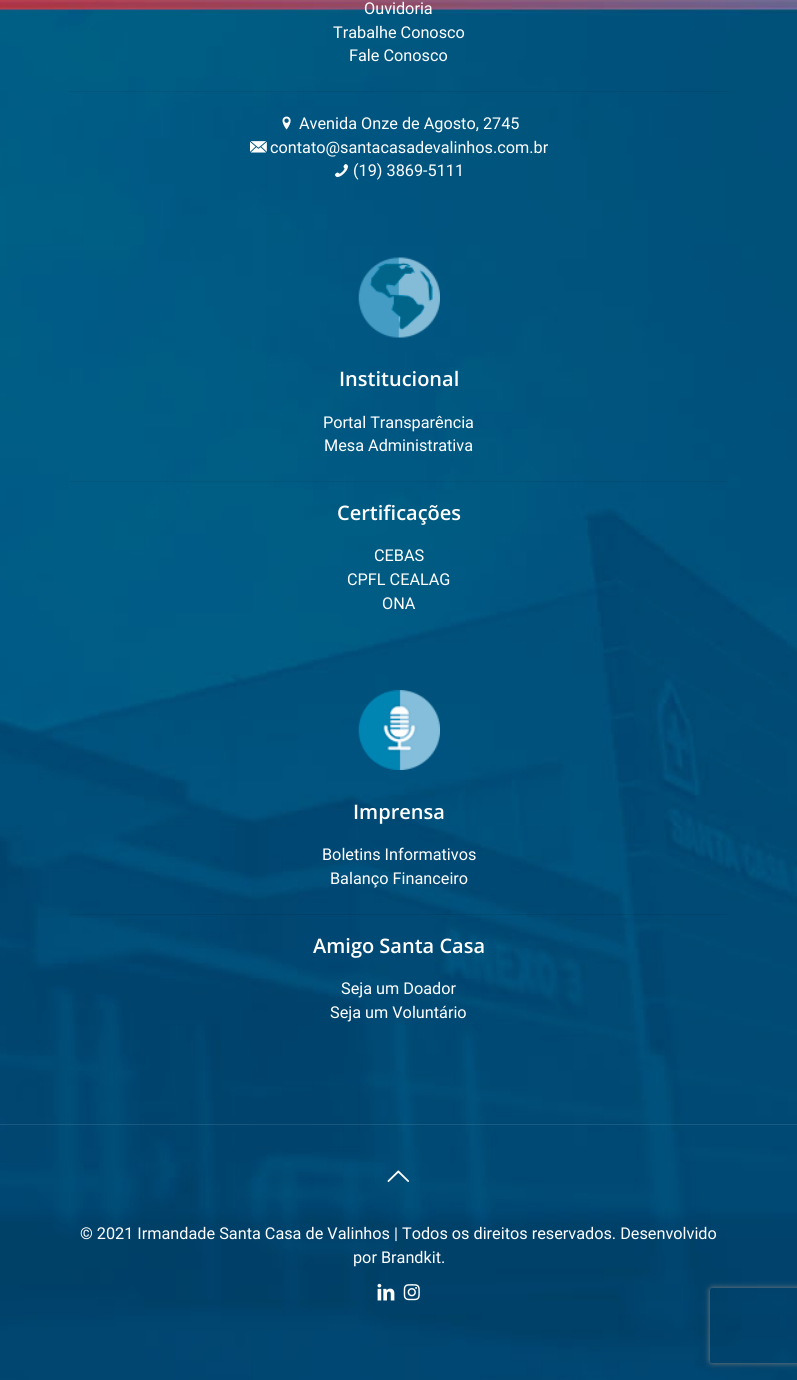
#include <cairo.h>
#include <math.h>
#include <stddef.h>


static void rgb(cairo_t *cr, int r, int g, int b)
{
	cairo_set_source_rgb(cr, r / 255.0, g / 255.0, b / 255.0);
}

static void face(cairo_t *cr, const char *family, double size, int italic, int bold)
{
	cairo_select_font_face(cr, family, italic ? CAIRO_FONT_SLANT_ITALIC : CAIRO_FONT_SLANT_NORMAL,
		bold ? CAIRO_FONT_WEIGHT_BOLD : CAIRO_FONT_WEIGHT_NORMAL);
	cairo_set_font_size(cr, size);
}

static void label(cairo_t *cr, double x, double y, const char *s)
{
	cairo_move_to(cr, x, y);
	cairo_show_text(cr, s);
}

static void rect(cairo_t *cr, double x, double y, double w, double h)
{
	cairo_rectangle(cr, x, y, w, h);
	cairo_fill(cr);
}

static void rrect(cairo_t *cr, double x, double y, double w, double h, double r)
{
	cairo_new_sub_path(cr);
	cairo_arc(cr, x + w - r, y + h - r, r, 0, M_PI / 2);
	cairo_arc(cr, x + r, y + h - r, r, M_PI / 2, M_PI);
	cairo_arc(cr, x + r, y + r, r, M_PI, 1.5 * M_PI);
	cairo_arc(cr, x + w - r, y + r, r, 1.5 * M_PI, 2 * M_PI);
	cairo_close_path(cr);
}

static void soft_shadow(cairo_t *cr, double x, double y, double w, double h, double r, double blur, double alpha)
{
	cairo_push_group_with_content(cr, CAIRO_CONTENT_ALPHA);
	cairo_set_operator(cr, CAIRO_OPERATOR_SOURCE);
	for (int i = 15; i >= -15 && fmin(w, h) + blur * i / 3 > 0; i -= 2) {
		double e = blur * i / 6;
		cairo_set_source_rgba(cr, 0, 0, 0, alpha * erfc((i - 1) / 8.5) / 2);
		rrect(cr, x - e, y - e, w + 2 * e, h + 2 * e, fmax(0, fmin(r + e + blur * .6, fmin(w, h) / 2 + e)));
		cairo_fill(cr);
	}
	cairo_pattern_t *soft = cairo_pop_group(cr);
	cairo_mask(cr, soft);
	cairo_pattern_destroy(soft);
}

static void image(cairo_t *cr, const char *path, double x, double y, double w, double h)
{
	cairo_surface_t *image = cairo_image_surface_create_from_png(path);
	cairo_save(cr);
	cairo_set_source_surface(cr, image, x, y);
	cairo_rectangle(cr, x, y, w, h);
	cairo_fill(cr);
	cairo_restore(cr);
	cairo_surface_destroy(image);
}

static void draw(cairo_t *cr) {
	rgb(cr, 255, 255, 255);
	cairo_paint(cr);
	image(cr, "image0.png", 0, 0, 797, 1380);
	face(cr, "Roboto", 16.25, 0, 0);
	rgb(cr, 255, 255, 255);
	label(cr, 364, 14, "Ouvidoria");
	label(cr, 333, 38, "Trabalhe Conosco");
	label(cr, 349, 61, "Fale Conosco");
	cairo_set_source_rgba(cr, 0, 0, 0, 0.08);
	rect(cr, 70, 91, 658, 1);
	image(cr, "image1.png", 282, 116, 9, 14);
	rgb(cr, 255, 255, 255);
	label(cr, 299, 129, "Avenida Onze de Agosto, 2745");
	image(cr, "image2.png", 250, 141, 17, 12);
	label(cr, 270, 153, "contato@santacasadevalinhos.com.br");
	image(cr, "image3.png", 335, 164, 13, 14);
	label(cr, 353, 176, "(19) 3869-5111");
	image(cr, "image4.png", 358, 257, 82, 81);
	face(cr, "Open Sans SemiBold", 20, 0, 0);
	label(cr, 339, 386, "Institucional");
	face(cr, "Roboto", 16.25, 0, 0);
	label(cr, 323, 428, "Portal Transparência");
	label(cr, 324, 451, "Mesa Administrativa");
	cairo_set_source_rgba(cr, 0, 0, 0, 0.08);
	rect(cr, 70, 481, 658, 1);
	face(cr, "Open Sans SemiBold", 20, 0, 0);
	rgb(cr, 255, 255, 255);
	label(cr, 337, 520, "Certificações");
	face(cr, "Roboto", 16.25, 0, 0);
	label(cr, 374, 561, "CEBAS");
	label(cr, 347, 585, "CPFL CEALAG");
	label(cr, 382, 609, "ONA");
	image(cr, "image5.png", 358, 690, 82, 80);
	face(cr, "Open Sans SemiBold", 20, 0, 0);
	label(cr, 353, 819, "Imprensa");
	face(cr, "Roboto", 16.25, 0, 0);
	label(cr, 322, 860, "Boletins Informativos");
	label(cr, 330, 884, "Balanço Financeiro");
	cairo_set_source_rgba(cr, 0, 0, 0, 0.08);
	rect(cr, 70, 914, 658, 1);
	face(cr, "Open Sans SemiBold", 20, 0, 0);
	rgb(cr, 255, 255, 255);
	label(cr, 313, 953, "Amigo Santa Casa");
	face(cr, "Roboto", 16.25, 0, 0);
	label(cr, 341, 994, "Seja um Doador");
	label(cr, 330, 1018, "Seja um Voluntário");
	cairo_set_source_rgba(cr, 1, 1, 1, 0.1);
	rect(cr, 0, 1124, 797, 1);
	image(cr, "image6.png", 387, 1170, 22, 12);
	rgb(cr, 255, 255, 255);
	label(cr, 80, 1239, "© 2021 Irmandade Santa Casa de Valinhos | Todos os direitos reservados. Desenvolvido");
	label(cr, 353, 1263, "por Brandkit.");
	image(cr, "image7.png", 377, 1283, 18, 18);
	image(cr, "image8.png", 403, 1284, 17, 17);
	cairo_save(cr);
	cairo_set_fill_rule(cr, CAIRO_FILL_RULE_EVEN_ODD);
	cairo_new_path(cr);
	cairo_move_to(cr, 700, 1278);
	cairo_line_to(cr, 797, 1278);
	cairo_line_to(cr, 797, 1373);
	cairo_line_to(cr, 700, 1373);
	cairo_close_path(cr);
	cairo_move_to(cr, 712.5, 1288);
	cairo_line_to(cr, 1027.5, 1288);
	cairo_curve_to(cr, 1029, 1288, 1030, 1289, 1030, 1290.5);
	cairo_line_to(cr, 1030, 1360.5);
	cairo_curve_to(cr, 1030, 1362, 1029, 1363, 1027.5, 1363);
	cairo_line_to(cr, 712.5, 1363);
	cairo_curve_to(cr, 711, 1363, 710, 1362, 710, 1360.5);
	cairo_line_to(cr, 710, 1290.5);
	cairo_curve_to(cr, 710, 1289, 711, 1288, 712.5, 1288);
	cairo_close_path(cr);
	cairo_clip(cr);
	rgb(cr, 128, 128, 128);
	soft_shadow(cr, 710, 1288, 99, 75, 2.5, 3, 1);
	cairo_restore(cr);
}

int main(void) {
	cairo_surface_t *surface = cairo_image_surface_create(CAIRO_FORMAT_RGB24, 797, 1380);
	cairo_t *cr = cairo_create(surface);
	cairo_font_options_t *options = cairo_font_options_create();
	cairo_font_options_set_hint_metrics(options, CAIRO_HINT_METRICS_OFF);
	cairo_font_options_set_hint_style(options, CAIRO_HINT_STYLE_NONE);
	cairo_set_font_options(cr, options);
	cairo_set_miter_limit(cr, 4);
	draw(cr);
	cairo_surface_write_to_png(surface, "render.png");
	cairo_font_options_destroy(options);
	cairo_destroy(cr);
	cairo_surface_destroy(surface);
	return 0;
}
